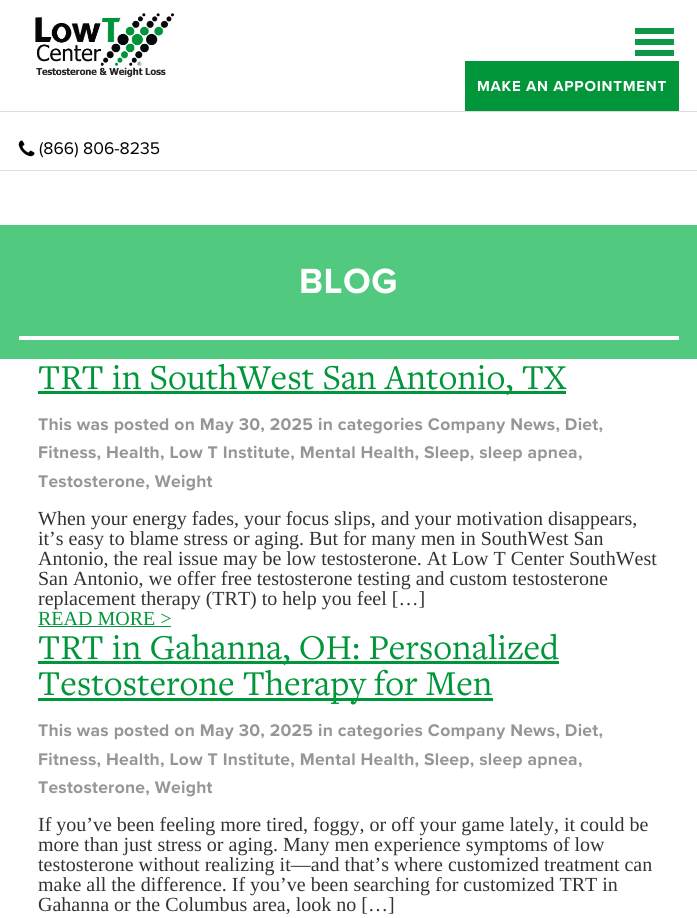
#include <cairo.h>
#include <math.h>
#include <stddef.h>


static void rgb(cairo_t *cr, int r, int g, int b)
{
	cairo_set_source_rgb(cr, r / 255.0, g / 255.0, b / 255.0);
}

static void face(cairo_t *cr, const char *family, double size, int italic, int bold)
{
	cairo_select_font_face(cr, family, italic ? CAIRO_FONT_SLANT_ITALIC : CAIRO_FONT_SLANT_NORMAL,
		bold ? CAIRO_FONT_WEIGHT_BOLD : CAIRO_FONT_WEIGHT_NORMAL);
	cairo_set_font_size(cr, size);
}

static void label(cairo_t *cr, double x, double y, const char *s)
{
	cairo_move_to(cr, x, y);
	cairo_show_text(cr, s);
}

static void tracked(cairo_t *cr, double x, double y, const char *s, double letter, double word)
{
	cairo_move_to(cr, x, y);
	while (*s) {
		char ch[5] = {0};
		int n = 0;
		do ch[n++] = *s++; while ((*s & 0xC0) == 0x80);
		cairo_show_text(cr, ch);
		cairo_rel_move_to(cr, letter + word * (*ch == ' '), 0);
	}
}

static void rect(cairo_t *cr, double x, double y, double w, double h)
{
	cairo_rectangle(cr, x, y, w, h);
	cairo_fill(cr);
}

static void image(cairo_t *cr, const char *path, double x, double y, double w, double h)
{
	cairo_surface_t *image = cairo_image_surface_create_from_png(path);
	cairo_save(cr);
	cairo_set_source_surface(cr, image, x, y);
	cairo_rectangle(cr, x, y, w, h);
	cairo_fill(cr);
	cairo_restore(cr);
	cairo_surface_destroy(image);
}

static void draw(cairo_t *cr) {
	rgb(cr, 255, 255, 255);
	cairo_paint(cr);
	image(cr, "image0.png", 35, 13, 140, 64);
	rgb(cr, 14, 151, 72);
	rect(cr, 635, 28, 39, 6);
	rect(cr, 635, 39, 39, 6);
	rect(cr, 635, 50, 39, 6);
	rgb(cr, 0, 150, 57);
	rect(cr, 465, 61, 214, 50);
	face(cr, "Proxima Nova", 15, 0, 1);
	rgb(cr, 255, 255, 255);
	tracked(cr, 477, 91, "MAKE AN APPOINTMENT", 0.75, 0);
	rgb(cr, 221, 221, 221);
	rect(cr, 0, 111, 697, 1);
	rect(cr, 0, 170, 697, 1);
	image(cr, "image1.png", 18, 140, 17, 17);
	face(cr, "Proxima Nova", 17.5, 0, 0);
	rgb(cr, 0, 0, 0);
	label(cr, 39, 154, "(866) 806-8235");
	rgb(cr, 81, 201, 127);
	rect(cr, 0, 225, 697, 134);
	rgb(cr, 255, 255, 255);
	rect(cr, 19, 336, 660, 4);
	face(cr, "Proxima Nova", 36.25, 0, 1);
	tracked(cr, 299, 293, "BLOG", 0.5, 0);
	rgb(cr, 0, 150, 57);
	rect(cr, 38, 391, 528, 3);
	face(cr, "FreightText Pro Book", 36.25, 0, 0);
	label(cr, 38, 389, "TRT in SouthWest San Antonio, TX");
	face(cr, "Proxima Nova", 17.5, 0, 1);
	rgb(cr, 148, 150, 152);
	tracked(cr, 38, 430, "This was posted on May 30, 2025 in categories Company News, Diet,", 0.25, 0);
	tracked(cr, 38, 458, "Fitness, Health, Low T Institute, Mental Health, Sleep, sleep apnea,", 0.25, 0);
	tracked(cr, 38, 487, "Testosterone, Weight", 0.25, 0);
	face(cr, "Liberation Serif", 20, 0, 0);
	rgb(cr, 51, 51, 51);
	label(cr, 38, 525, "When your energy fades, your focus slips, and your motivation disappears,");
	label(cr, 38, 545, "it’s easy to blame stress or aging. But for many men in SouthWest San");
	label(cr, 38, 565, "Antonio, the real issue may be low testosterone. At Low T Center SouthWest");
	label(cr, 38, 585, "San Antonio, we offer free testosterone testing and custom testosterone");
	label(cr, 38, 605, "replacement therapy (TRT) to help you feel […]");
	rgb(cr, 0, 150, 57);
	label(cr, 38, 625, "READ MORE >");
	rect(cr, 38, 626, 133, 1);
	rect(cr, 38, 661, 521, 3);
	face(cr, "FreightText Pro Book", 36.25, 0, 0);
	label(cr, 38, 659, "TRT in Gahanna, OH: Personalized");
	rect(cr, 38, 698, 455, 3);
	label(cr, 38, 695, "Testosterone Therapy for Men");
	face(cr, "Proxima Nova", 17.5, 0, 1);
	rgb(cr, 148, 150, 152);
	tracked(cr, 38, 736, "This was posted on May 30, 2025 in categories Company News, Diet,", 0.25, 0);
	tracked(cr, 38, 765, "Fitness, Health, Low T Institute, Mental Health, Sleep, sleep apnea,", 0.25, 0);
	tracked(cr, 38, 793, "Testosterone, Weight", 0.25, 0);
	face(cr, "Liberation Serif", 20, 0, 0);
	rgb(cr, 51, 51, 51);
	label(cr, 38, 831, "If you’ve been feeling more tired, foggy, or off your game lately, it could be");
	label(cr, 38, 851, "more than just stress or aging. Many men experience symptoms of low");
	label(cr, 38, 871, "testosterone without realizing it—and that’s where customized treatment can");
	label(cr, 38, 891, "make all the difference. If you’ve been searching for customized TRT in");
	label(cr, 38, 911, "Gahanna or the Columbus area, look no […]");
}

int main(void) {
	cairo_surface_t *surface = cairo_image_surface_create(CAIRO_FORMAT_RGB24, 697, 918);
	cairo_t *cr = cairo_create(surface);
	cairo_font_options_t *options = cairo_font_options_create();
	cairo_font_options_set_hint_metrics(options, CAIRO_HINT_METRICS_OFF);
	cairo_font_options_set_hint_style(options, CAIRO_HINT_STYLE_NONE);
	cairo_set_font_options(cr, options);
	cairo_set_miter_limit(cr, 4);
	draw(cr);
	cairo_surface_write_to_png(surface, "render.png");
	cairo_font_options_destroy(options);
	cairo_destroy(cr);
	cairo_surface_destroy(surface);
	return 0;
}
